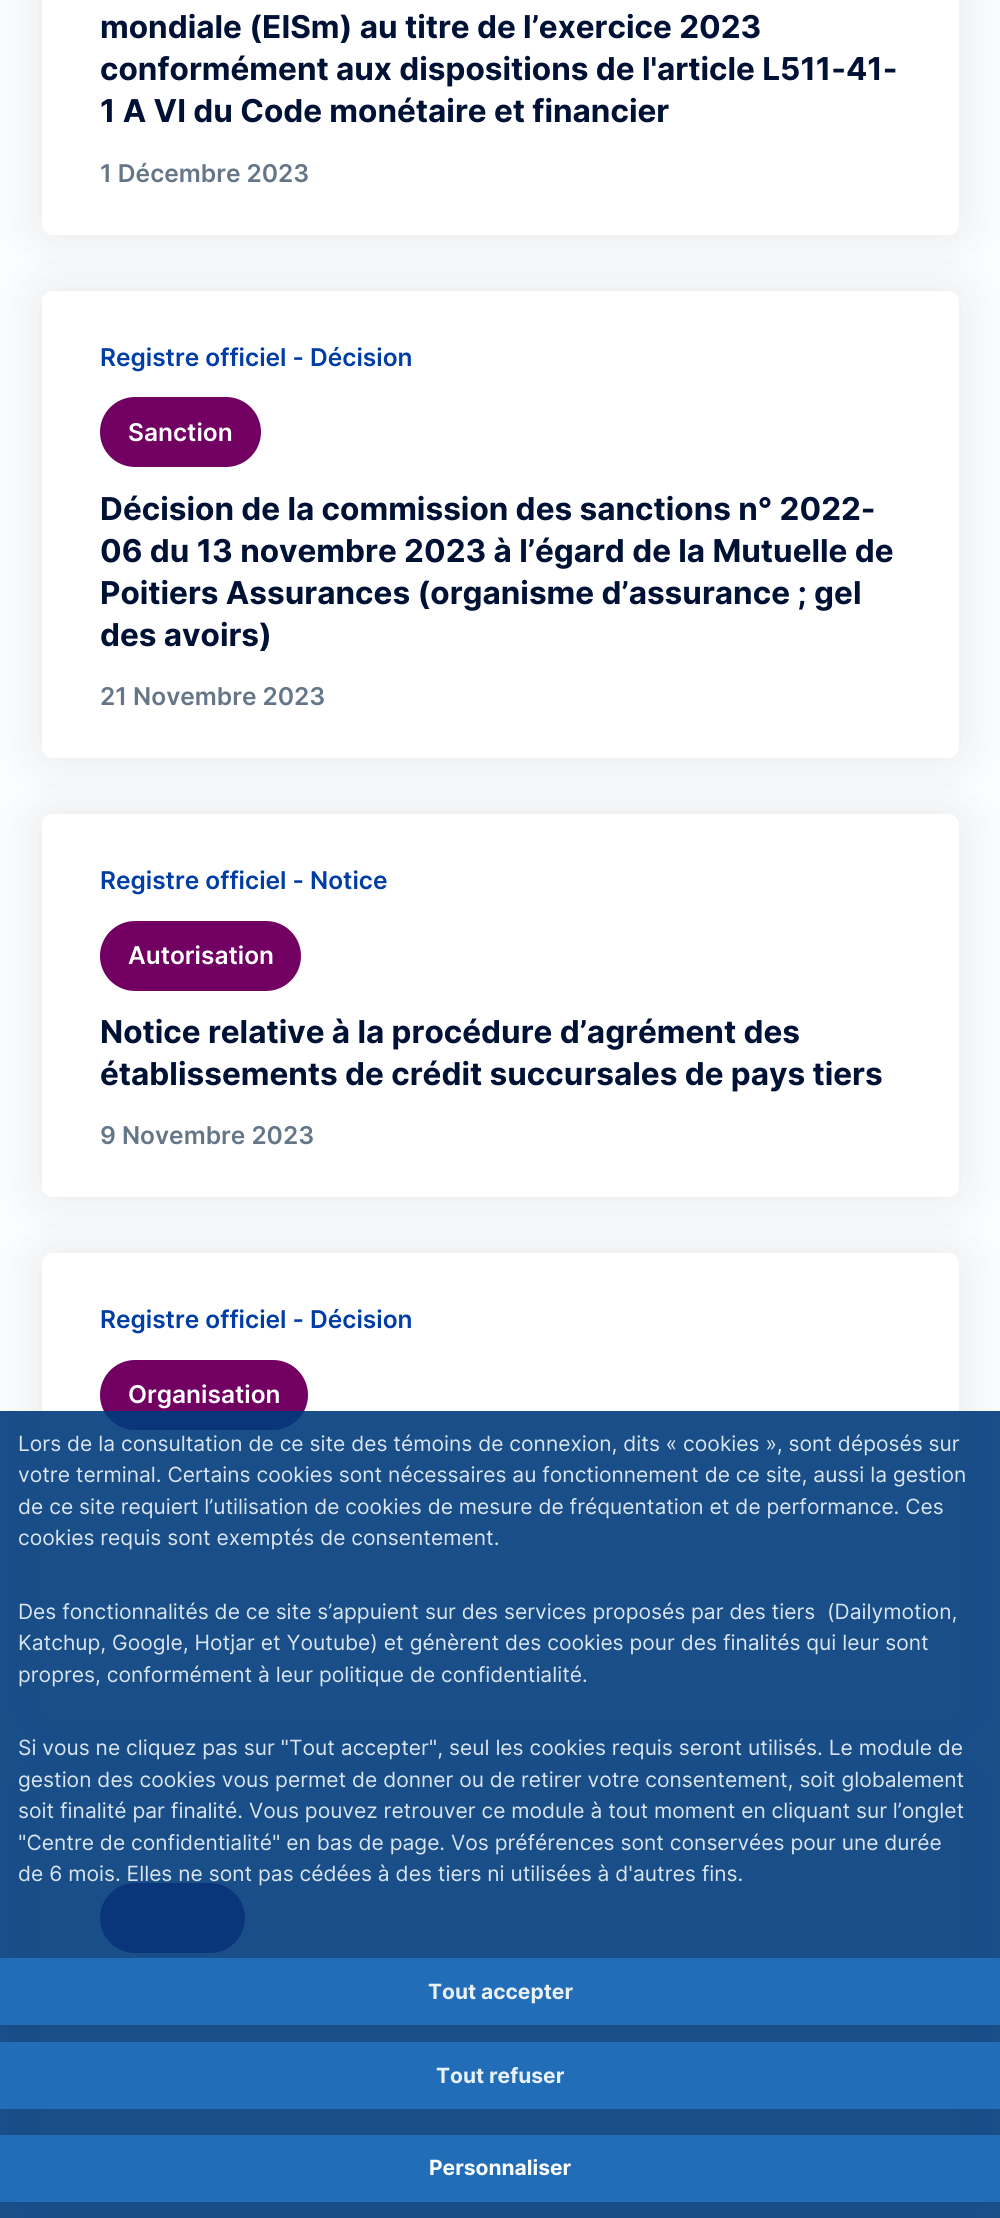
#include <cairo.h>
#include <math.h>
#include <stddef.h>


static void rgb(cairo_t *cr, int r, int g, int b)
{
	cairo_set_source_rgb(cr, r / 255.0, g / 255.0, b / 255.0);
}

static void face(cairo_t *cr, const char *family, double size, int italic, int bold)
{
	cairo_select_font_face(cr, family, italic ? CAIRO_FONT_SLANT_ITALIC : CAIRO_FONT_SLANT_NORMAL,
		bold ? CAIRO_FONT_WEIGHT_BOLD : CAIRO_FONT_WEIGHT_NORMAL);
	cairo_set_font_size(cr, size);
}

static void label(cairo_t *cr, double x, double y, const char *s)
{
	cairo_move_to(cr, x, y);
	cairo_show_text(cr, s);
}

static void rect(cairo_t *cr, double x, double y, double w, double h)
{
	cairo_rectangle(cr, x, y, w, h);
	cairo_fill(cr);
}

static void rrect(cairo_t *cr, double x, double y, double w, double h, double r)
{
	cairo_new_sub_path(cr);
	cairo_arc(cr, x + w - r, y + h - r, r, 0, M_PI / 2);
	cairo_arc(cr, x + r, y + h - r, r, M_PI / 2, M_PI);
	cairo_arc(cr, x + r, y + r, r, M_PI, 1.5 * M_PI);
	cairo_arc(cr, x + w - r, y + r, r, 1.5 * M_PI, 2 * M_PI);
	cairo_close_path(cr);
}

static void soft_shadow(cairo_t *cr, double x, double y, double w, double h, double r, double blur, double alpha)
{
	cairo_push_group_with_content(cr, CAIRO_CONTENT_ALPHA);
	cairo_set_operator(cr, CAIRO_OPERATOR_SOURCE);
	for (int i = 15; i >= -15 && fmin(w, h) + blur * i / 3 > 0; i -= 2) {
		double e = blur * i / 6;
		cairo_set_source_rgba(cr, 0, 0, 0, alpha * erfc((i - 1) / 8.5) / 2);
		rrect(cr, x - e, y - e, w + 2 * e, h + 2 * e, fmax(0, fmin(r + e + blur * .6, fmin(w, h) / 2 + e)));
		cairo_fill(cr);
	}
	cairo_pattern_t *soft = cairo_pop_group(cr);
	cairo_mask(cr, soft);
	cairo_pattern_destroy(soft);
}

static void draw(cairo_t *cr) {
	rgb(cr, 251, 252, 253);
	cairo_paint(cr);
	rgb(cr, 0, 0, 0);
	soft_shadow(cr, 42, -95, 917, 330, 11, 28, 0.08);
	rgb(cr, 255, 255, 255);
	rrect(cr, 42, -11, 917, 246, 11);
	cairo_fill(cr);
	face(cr, "Inter", 31.5, 0, 1);
	rgb(cr, 0, 17, 54);
	label(cr, 100, 38, "mondiale (EISm) au titre de l’exercice 2023");
	label(cr, 100, 80, "conformément aux dispositions de l'article L511-41-");
	label(cr, 100, 122, "1 A VI du Code monétaire et financier");
	face(cr, "Inter SemiBold", 24.5, 0, 0);
	rgb(cr, 100, 118, 136);
	label(cr, 100, 182, "1 Décembre 2023");
	rgb(cr, 0, 0, 0);
	soft_shadow(cr, 42, 291, 917, 467, 11, 28, 0.08);
	rgb(cr, 255, 255, 255);
	rrect(cr, 42, 291, 917, 467, 11);
	cairo_fill(cr);
	rgb(cr, 0, 61, 165);
	label(cr, 100, 366, "Registre officiel - Décision");
	rgb(cr, 114, 0, 98);
	rrect(cr, 100, 397, 161, 70, 35);
	cairo_fill(cr);
	rgb(cr, 255, 255, 255);
	label(cr, 128, 441, "Sanction");
	face(cr, "Inter", 31.5, 0, 1);
	rgb(cr, 0, 17, 54);
	label(cr, 100, 520, "Décision de la commission des sanctions n° 2022-");
	label(cr, 100, 562, "06 du 13 novembre 2023 à l’égard de la Mutuelle de");
	label(cr, 100, 604, "Poitiers Assurances (organisme d’assurance ; gel");
	label(cr, 100, 646, "des avoirs)");
	face(cr, "Inter SemiBold", 24.5, 0, 0);
	rgb(cr, 100, 118, 136);
	label(cr, 100, 705, "21 Novembre 2023");
	rgb(cr, 0, 0, 0);
	soft_shadow(cr, 42, 814, 917, 383, 11, 28, 0.08);
	rgb(cr, 255, 255, 255);
	rrect(cr, 42, 814, 917, 383, 11);
	cairo_fill(cr);
	rgb(cr, 0, 61, 165);
	label(cr, 100, 889, "Registre officiel - Notice");
	rgb(cr, 114, 0, 98);
	rrect(cr, 100, 921, 201, 70, 35);
	cairo_fill(cr);
	rgb(cr, 255, 255, 255);
	label(cr, 128, 964, "Autorisation");
	face(cr, "Inter", 31.5, 0, 1);
	rgb(cr, 0, 17, 54);
	label(cr, 100, 1043, "Notice relative à la procédure d’agrément des");
	label(cr, 100, 1085, "établissements de crédit succursales de pays tiers");
	face(cr, "Inter SemiBold", 24.5, 0, 0);
	rgb(cr, 100, 118, 136);
	label(cr, 100, 1144, "9 Novembre 2023");
	rgb(cr, 0, 0, 0);
	soft_shadow(cr, 42, 1253, 917, 467, 11, 28, 0.08);
	rgb(cr, 255, 255, 255);
	rrect(cr, 42, 1253, 917, 467, 11);
	cairo_fill(cr);
	rgb(cr, 0, 61, 165);
	label(cr, 100, 1328, "Registre officiel - Décision");
	rgb(cr, 114, 0, 98);
	rrect(cr, 100, 1360, 208, 70, 35);
	cairo_fill(cr);
	rgb(cr, 255, 255, 255);
	label(cr, 128, 1403, "Organisation");
	rgb(cr, 0, 0, 0);
	soft_shadow(cr, 42, 1776, 917, 426, 11, 28, 0.08);
	rgb(cr, 255, 255, 255);
	rrect(cr, 42, 1776, 917, 426, 11);
	cairo_fill(cr);
	rgb(cr, 114, 0, 98);
	rrect(cr, 100, 1883, 145, 70, 35);
	cairo_fill(cr);
	cairo_set_source_rgba(cr, 0, 0.231, 0.49, 0.9);
	rect(cr, 0, 1411, 1000, 807);
	face(cr, "Inter", 21, 0, 0);
	rgb(cr, 217, 229, 237);
	label(cr, 18, 1451, "Lors de la consultation de ce site des témoins de connexion, dits « cookies », sont déposés sur");
	label(cr, 18, 1482, "votre terminal. Certains cookies sont nécessaires au fonctionnement de ce site, aussi la gestion");
	label(cr, 18, 1514, "de ce site requiert l’utilisation de cookies de mesure de fréquentation et de performance. Ces");
	label(cr, 18, 1545, "cookies requis sont exemptés de consentement.");
	label(cr, 18, 1619, "Des fonctionnalités de ce site s’appuient sur des services proposés par des tiers  (Dailymotion,");
	label(cr, 18, 1650, "Katchup, Google, Hotjar et Youtube) et génèrent des cookies pour des finalités qui leur sont");
	label(cr, 18, 1682, "propres, conformément à leur politique de confidentialité.");
	label(cr, 18, 1755, "Si vous ne cliquez pas sur \"Tout accepter\", seul les cookies requis seront utilisés. Le module de");
	label(cr, 18, 1787, "gestion des cookies vous permet de donner ou de retirer votre consentement, soit globalement");
	label(cr, 18, 1818, "soit finalité par finalité. Vous pouvez retrouver ce module à tout moment en cliquant sur l’onglet");
	label(cr, 18, 1850, "\"Centre de confidentialité\" en bas de page. Vos préférences sont conservées pour une durée");
	label(cr, 18, 1881, "de 6 mois. Elles ne sont pas cédées à des tiers ni utilisées à d'autres fins.");
	cairo_set_source_rgba(cr, 0.137, 0.439, 0.745, 0.9);
	rect(cr, 0, 1958, 1000, 67);
	face(cr, "Inter", 21, 0, 1);
	rgb(cr, 233, 240, 248);
	label(cr, 428, 1999, "Tout accepter");
	cairo_set_source_rgba(cr, 0.137, 0.439, 0.745, 0.9);
	rect(cr, 0, 2042, 1000, 67);
	rgb(cr, 233, 240, 248);
	label(cr, 436, 2083, "Tout refuser");
	cairo_set_source_rgba(cr, 0.137, 0.439, 0.745, 0.9);
	rect(cr, 0, 2135, 1000, 67);
	rgb(cr, 255, 255, 255);
	label(cr, 429, 2175, "Personnaliser");
}

int main(void) {
	cairo_surface_t *surface = cairo_image_surface_create(CAIRO_FORMAT_RGB24, 1000, 2218);
	cairo_t *cr = cairo_create(surface);
	cairo_font_options_t *options = cairo_font_options_create();
	cairo_font_options_set_hint_metrics(options, CAIRO_HINT_METRICS_OFF);
	cairo_font_options_set_hint_style(options, CAIRO_HINT_STYLE_NONE);
	cairo_set_font_options(cr, options);
	cairo_set_miter_limit(cr, 4);
	draw(cr);
	cairo_surface_write_to_png(surface, "render.png");
	cairo_font_options_destroy(options);
	cairo_destroy(cr);
	cairo_surface_destroy(surface);
	return 0;
}
